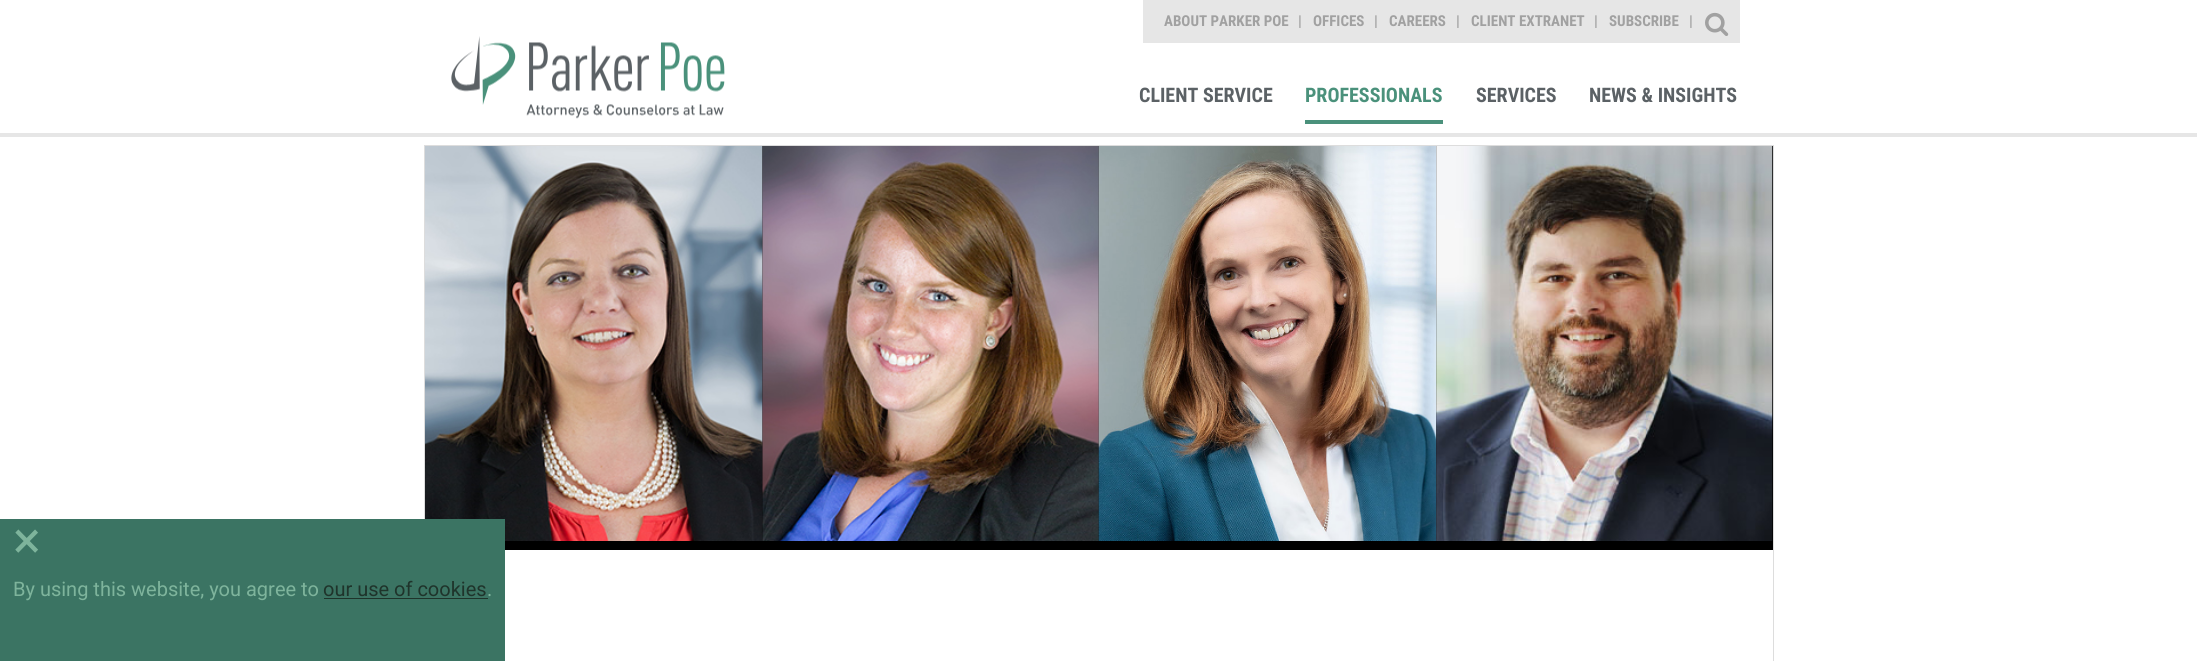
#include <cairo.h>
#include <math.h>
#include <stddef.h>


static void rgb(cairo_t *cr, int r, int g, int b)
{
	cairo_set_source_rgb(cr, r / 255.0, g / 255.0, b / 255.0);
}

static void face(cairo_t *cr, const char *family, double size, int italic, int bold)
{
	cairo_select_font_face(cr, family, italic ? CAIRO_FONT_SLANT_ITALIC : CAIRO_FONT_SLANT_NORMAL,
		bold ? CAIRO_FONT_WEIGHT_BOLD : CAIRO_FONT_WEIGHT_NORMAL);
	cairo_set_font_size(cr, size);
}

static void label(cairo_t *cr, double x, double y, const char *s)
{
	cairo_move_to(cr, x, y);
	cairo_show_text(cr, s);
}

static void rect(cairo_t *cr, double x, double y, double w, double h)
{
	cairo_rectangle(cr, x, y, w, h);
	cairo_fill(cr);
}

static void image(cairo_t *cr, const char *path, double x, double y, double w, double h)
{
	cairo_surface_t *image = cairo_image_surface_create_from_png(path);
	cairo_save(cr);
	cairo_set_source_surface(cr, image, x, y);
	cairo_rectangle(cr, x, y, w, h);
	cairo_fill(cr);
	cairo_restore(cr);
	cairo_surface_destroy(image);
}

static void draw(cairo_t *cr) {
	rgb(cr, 255, 255, 255);
	cairo_paint(cr);
	rgb(cr, 230, 230, 230);
	rect(cr, 0, 133, 2197, 4);
	image(cr, "image0.png", 451, 36, 274, 83);
	rect(cr, 1143, 0, 597, 43);
	face(cr, "Roboto Condensed", 15, 0, 1);
	rgb(cr, 161, 161, 161);
	label(cr, 1164, 26, "ABOUT PARKER POE");
	label(cr, 1298, 26, "|");
	label(cr, 1313, 26, "OFFICES");
	label(cr, 1374, 26, "|");
	label(cr, 1389, 26, "CAREERS");
	label(cr, 1456, 26, "|");
	label(cr, 1471, 26, "CLIENT EXTRANET");
	label(cr, 1594, 26, "|");
	label(cr, 1609, 26, "SUBSCRIBE");
	label(cr, 1689, 26, "|");
	image(cr, "image1.png", 1705, 12, 24, 24);
	face(cr, "Roboto Condensed", 20, 0, 1);
	rgb(cr, 91, 97, 101);
	label(cr, 1139, 102, "CLIENT SERVICE");
	rgb(cr, 74, 145, 123);
	label(cr, 1305, 102, "PROFESSIONALS");
	rect(cr, 1305, 120, 138, 4);
	rgb(cr, 91, 97, 101);
	label(cr, 1476, 102, "SERVICES");
	label(cr, 1589, 102, "NEWS & INSIGHTS");
	cairo_rectangle(cr, 424.5, 145.5, 1349, 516);
	rgb(cr, 221, 221, 221);
	cairo_set_line_width(cr, 1);
	cairo_stroke(cr);
	rgb(cr, 0, 0, 0);
	rect(cr, 425, 146, 1348, 404);
	image(cr, "image2.png", 425, 146, 338, 395);
	image(cr, "image3.png", 762, 146, 337, 395);
	image(cr, "image4.png", 1098, 146, 339, 395);
	image(cr, "image5.png", 1436, 146, 337, 395);
	rgb(cr, 59, 116, 99);
	rect(cr, 0, 519, 505, 142);
	face(cr, "Roboto", 52, 0, 0);
	rgb(cr, 126, 180, 156);
	label(cr, 13, 558, "×");
	face(cr, "Roboto", 20, 0, 0);
	label(cr, 13, 596, "By using this website, you agree to");
	rgb(cr, 31, 52, 43);
	label(cr, 323, 596, "our use of cookies");
	rect(cr, 324, 598, 164, 1);
	rgb(cr, 126, 180, 156);
	label(cr, 487, 596, ".");
}

int main(void) {
	cairo_surface_t *surface = cairo_image_surface_create(CAIRO_FORMAT_RGB24, 2197, 661);
	cairo_t *cr = cairo_create(surface);
	cairo_font_options_t *options = cairo_font_options_create();
	cairo_font_options_set_hint_metrics(options, CAIRO_HINT_METRICS_OFF);
	cairo_font_options_set_hint_style(options, CAIRO_HINT_STYLE_NONE);
	cairo_set_font_options(cr, options);
	cairo_set_miter_limit(cr, 4);
	draw(cr);
	cairo_surface_write_to_png(surface, "render.png");
	cairo_font_options_destroy(options);
	cairo_destroy(cr);
	cairo_surface_destroy(surface);
	return 0;
}
